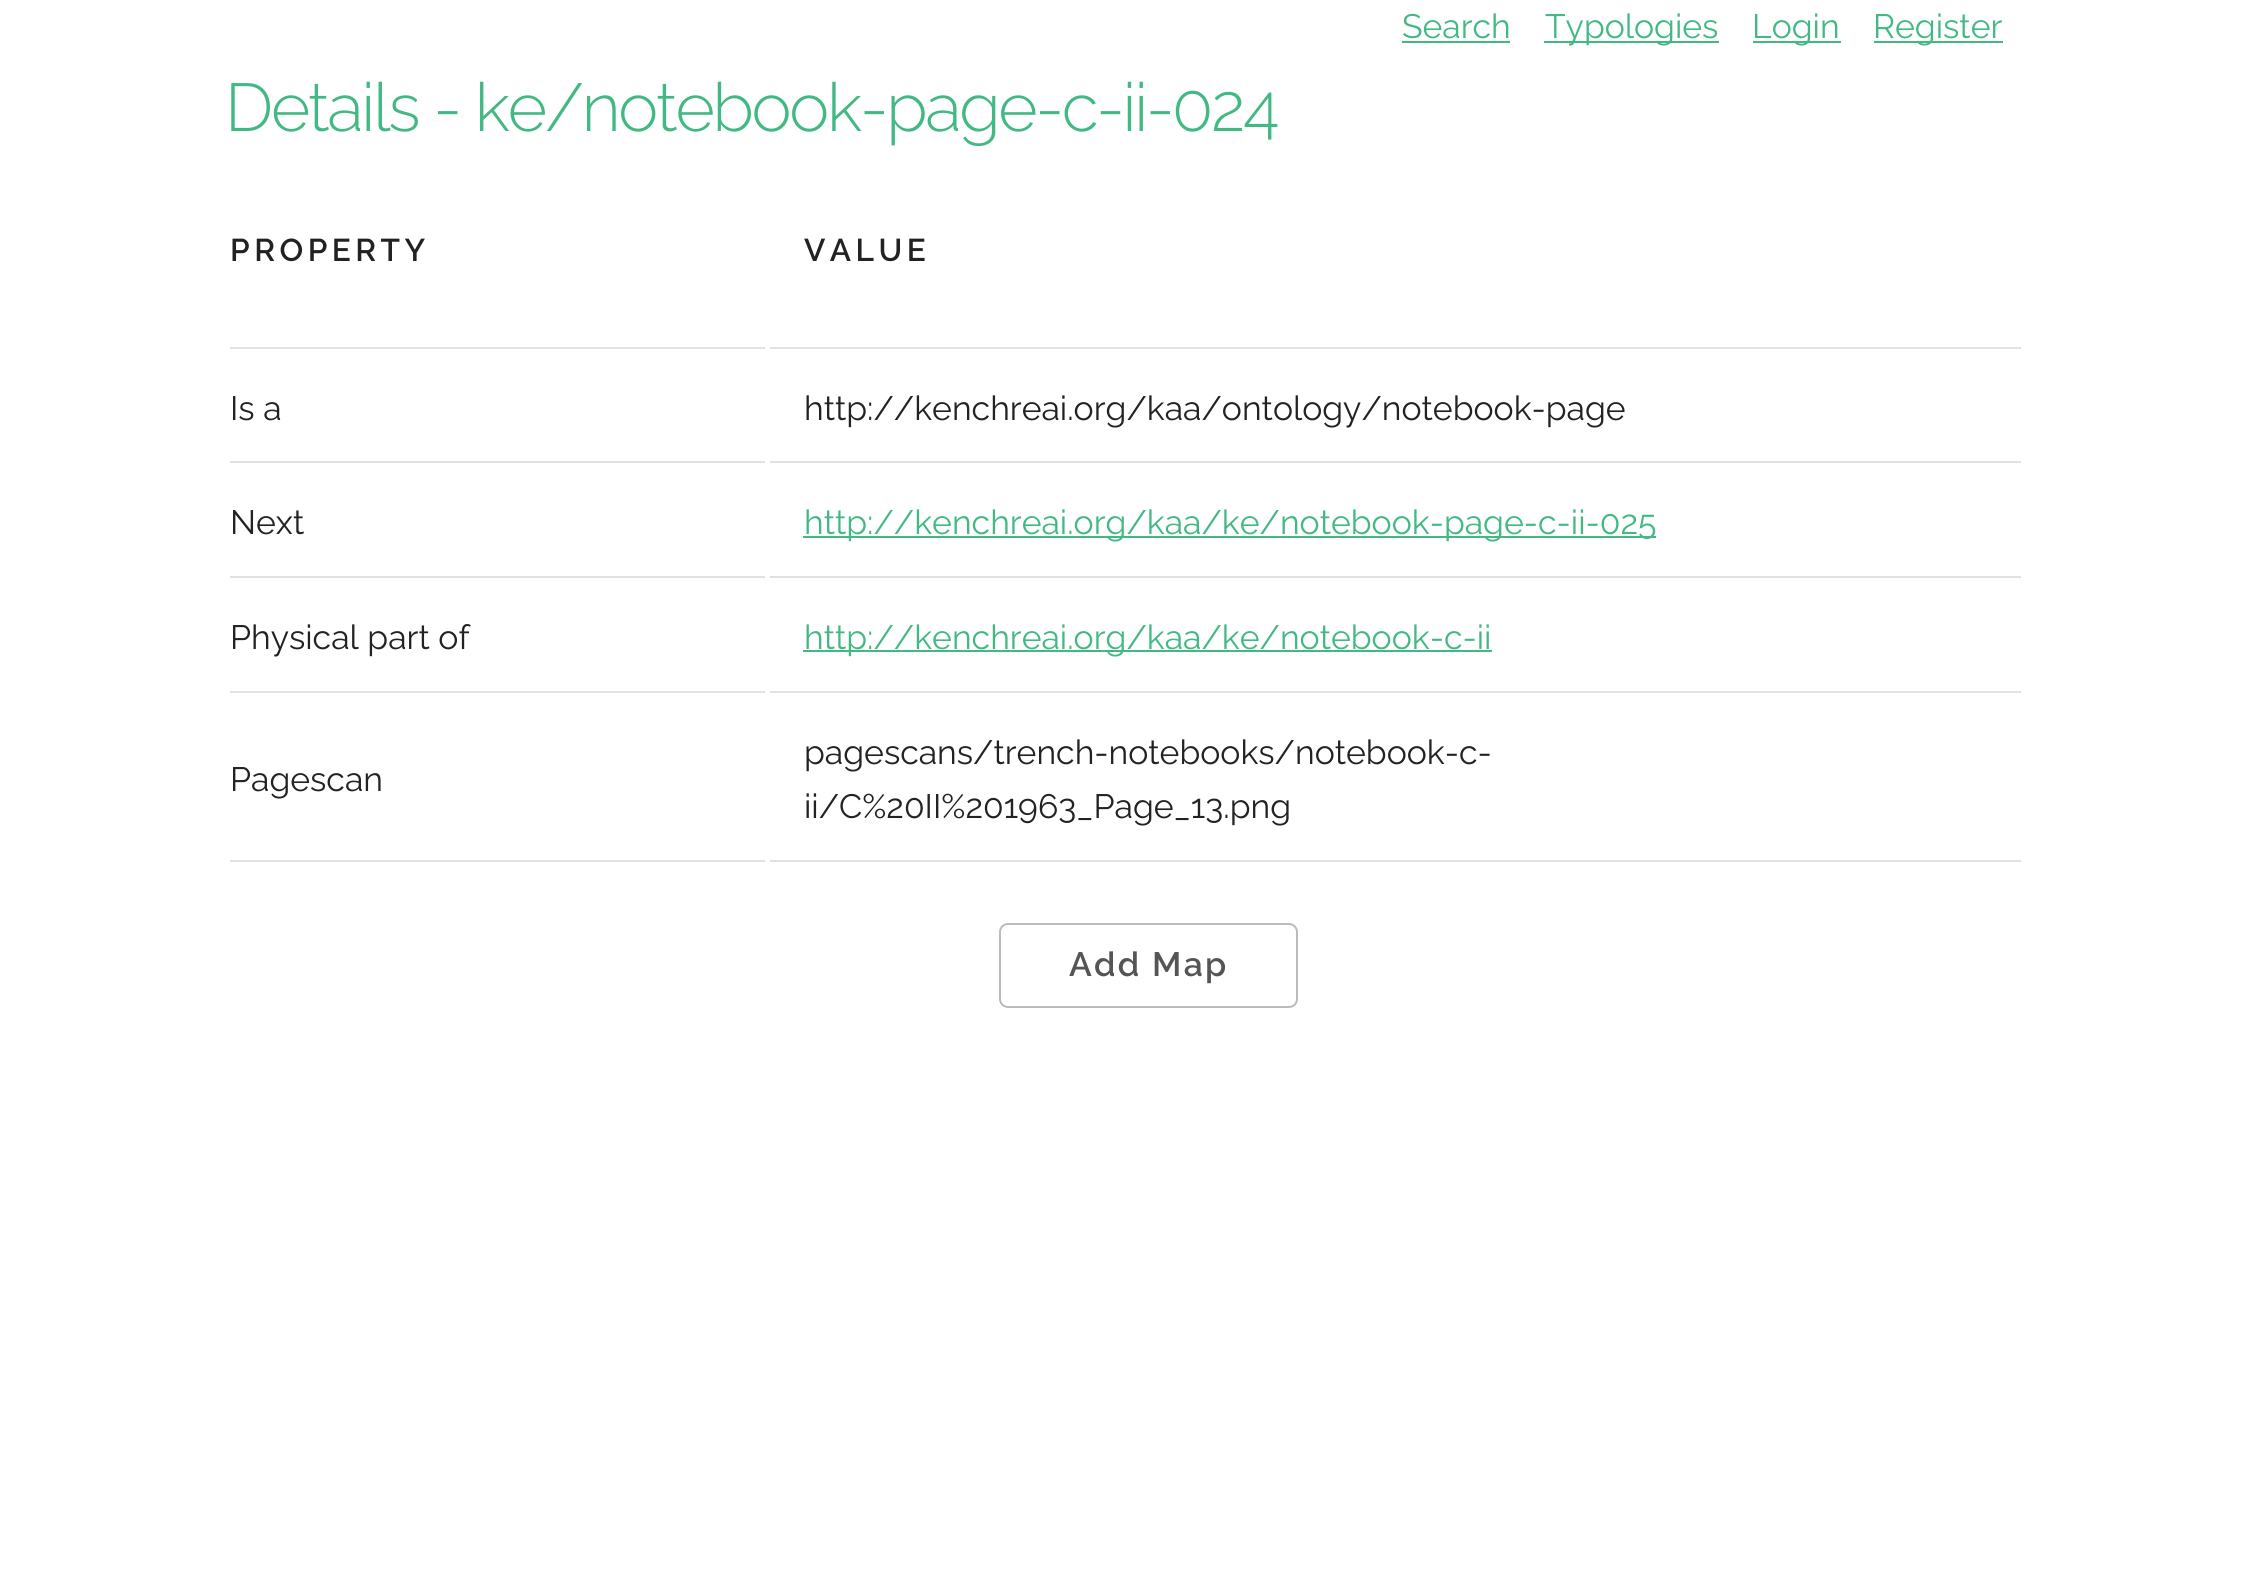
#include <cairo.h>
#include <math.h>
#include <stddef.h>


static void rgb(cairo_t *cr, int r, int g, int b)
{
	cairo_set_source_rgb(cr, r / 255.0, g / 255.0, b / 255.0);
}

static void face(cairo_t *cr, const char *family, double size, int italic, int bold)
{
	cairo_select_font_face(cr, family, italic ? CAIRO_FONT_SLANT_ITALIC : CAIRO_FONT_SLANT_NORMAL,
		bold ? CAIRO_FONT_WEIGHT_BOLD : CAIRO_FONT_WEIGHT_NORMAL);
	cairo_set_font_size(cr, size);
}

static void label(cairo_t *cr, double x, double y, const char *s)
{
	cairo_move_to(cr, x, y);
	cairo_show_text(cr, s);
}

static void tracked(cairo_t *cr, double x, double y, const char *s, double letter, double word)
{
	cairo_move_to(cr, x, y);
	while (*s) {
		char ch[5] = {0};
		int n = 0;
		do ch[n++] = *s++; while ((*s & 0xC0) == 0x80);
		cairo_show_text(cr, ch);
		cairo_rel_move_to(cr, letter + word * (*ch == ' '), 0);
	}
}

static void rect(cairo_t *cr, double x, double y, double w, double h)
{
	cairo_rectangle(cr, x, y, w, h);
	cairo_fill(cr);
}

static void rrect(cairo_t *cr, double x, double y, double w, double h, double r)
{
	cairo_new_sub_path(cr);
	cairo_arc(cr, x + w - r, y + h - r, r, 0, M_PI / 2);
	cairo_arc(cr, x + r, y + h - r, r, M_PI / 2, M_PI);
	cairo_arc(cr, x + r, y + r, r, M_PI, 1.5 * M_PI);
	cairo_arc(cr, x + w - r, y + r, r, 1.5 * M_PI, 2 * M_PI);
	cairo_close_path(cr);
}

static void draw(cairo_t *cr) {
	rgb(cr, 255, 255, 255);
	cairo_paint(cr);
	face(cr, "Raleway", 33.75, 0, 0);
	rgb(cr, 66, 185, 131);
	label(cr, 1402, 38, "Search");
	rect(cr, 1402, 41, 108, 2);
	rect(cr, 1544, 41, 175, 2);
	label(cr, 1545, 38, "Typologies");
	rect(cr, 1753, 41, 88, 2);
	label(cr, 1752, 38, "Login");
	rect(cr, 1874, 41, 129, 2);
	label(cr, 1873, 38, "Register");
	face(cr, "Raleway Light", 67.5, 0, 0);
	tracked(cr, 225, 131, "Details - ke/notebook-page-c-ii-024", -2.25, 0);
	rgb(cr, 225, 225, 225);
	rect(cr, 230, 347, 535, 2);
	face(cr, "Raleway SemiBold", 31.5, 0, 0);
	rgb(cr, 34, 34, 34);
	tracked(cr, 230, 261, "PROPERTY", 4.5, 0);
	rgb(cr, 225, 225, 225);
	rect(cr, 770, 347, 1251, 2);
	rgb(cr, 34, 34, 34);
	tracked(cr, 804, 261, "VALUE", 4.5, 0);
	rgb(cr, 225, 225, 225);
	rect(cr, 230, 461, 535, 2);
	face(cr, "Raleway", 33.75, 0, 0);
	rgb(cr, 34, 34, 34);
	label(cr, 230, 420, "Is a");
	rgb(cr, 225, 225, 225);
	rect(cr, 770, 461, 1251, 2);
	rgb(cr, 34, 34, 34);
	label(cr, 804, 420, "http://kenchreai.org/kaa/ontology/notebook-page");
	rgb(cr, 225, 225, 225);
	rect(cr, 230, 576, 535, 2);
	rgb(cr, 34, 34, 34);
	label(cr, 230, 534, "Next");
	rgb(cr, 225, 225, 225);
	rect(cr, 770, 576, 1251, 2);
	rgb(cr, 66, 185, 131);
	rect(cr, 803, 536, 853, 2);
	label(cr, 804, 534, "http://kenchreai.org/kaa/ke/notebook-page-c-ii-025");
	rgb(cr, 225, 225, 225);
	rect(cr, 230, 691, 535, 2);
	rgb(cr, 34, 34, 34);
	label(cr, 230, 649, "Physical part of");
	rgb(cr, 225, 225, 225);
	rect(cr, 770, 691, 1251, 2);
	rgb(cr, 66, 185, 131);
	rect(cr, 803, 650, 689, 2);
	label(cr, 804, 649, "http://kenchreai.org/kaa/ke/notebook-c-ii");
	rgb(cr, 225, 225, 225);
	rect(cr, 230, 860, 535, 2);
	rgb(cr, 34, 34, 34);
	label(cr, 230, 791, "Pagescan");
	rgb(cr, 225, 225, 225);
	rect(cr, 770, 860, 1251, 2);
	rgb(cr, 34, 34, 34);
	label(cr, 804, 764, "pagescans/trench-notebooks/notebook-c-");
	label(cr, 804, 818, "ii/C%20II%201963_Page_13.png");
	rrect(cr, 1000, 924, 297, 83, 8);
	rgb(cr, 187, 187, 187);
	cairo_stroke(cr);
	face(cr, "Raleway SemiBold", 33.75, 0, 0);
	rgb(cr, 85, 85, 85);
	tracked(cr, 1069, 976, "Add Map", 2.25, 0);
}

int main(void) {
	cairo_surface_t *surface = cairo_image_surface_create(CAIRO_FORMAT_RGB24, 2249, 1590);
	cairo_t *cr = cairo_create(surface);
	cairo_font_options_t *options = cairo_font_options_create();
	cairo_font_options_set_hint_metrics(options, CAIRO_HINT_METRICS_OFF);
	cairo_font_options_set_hint_style(options, CAIRO_HINT_STYLE_NONE);
	cairo_set_font_options(cr, options);
	cairo_set_miter_limit(cr, 4);
	draw(cr);
	cairo_surface_write_to_png(surface, "render.png");
	cairo_font_options_destroy(options);
	cairo_destroy(cr);
	cairo_surface_destroy(surface);
	return 0;
}
